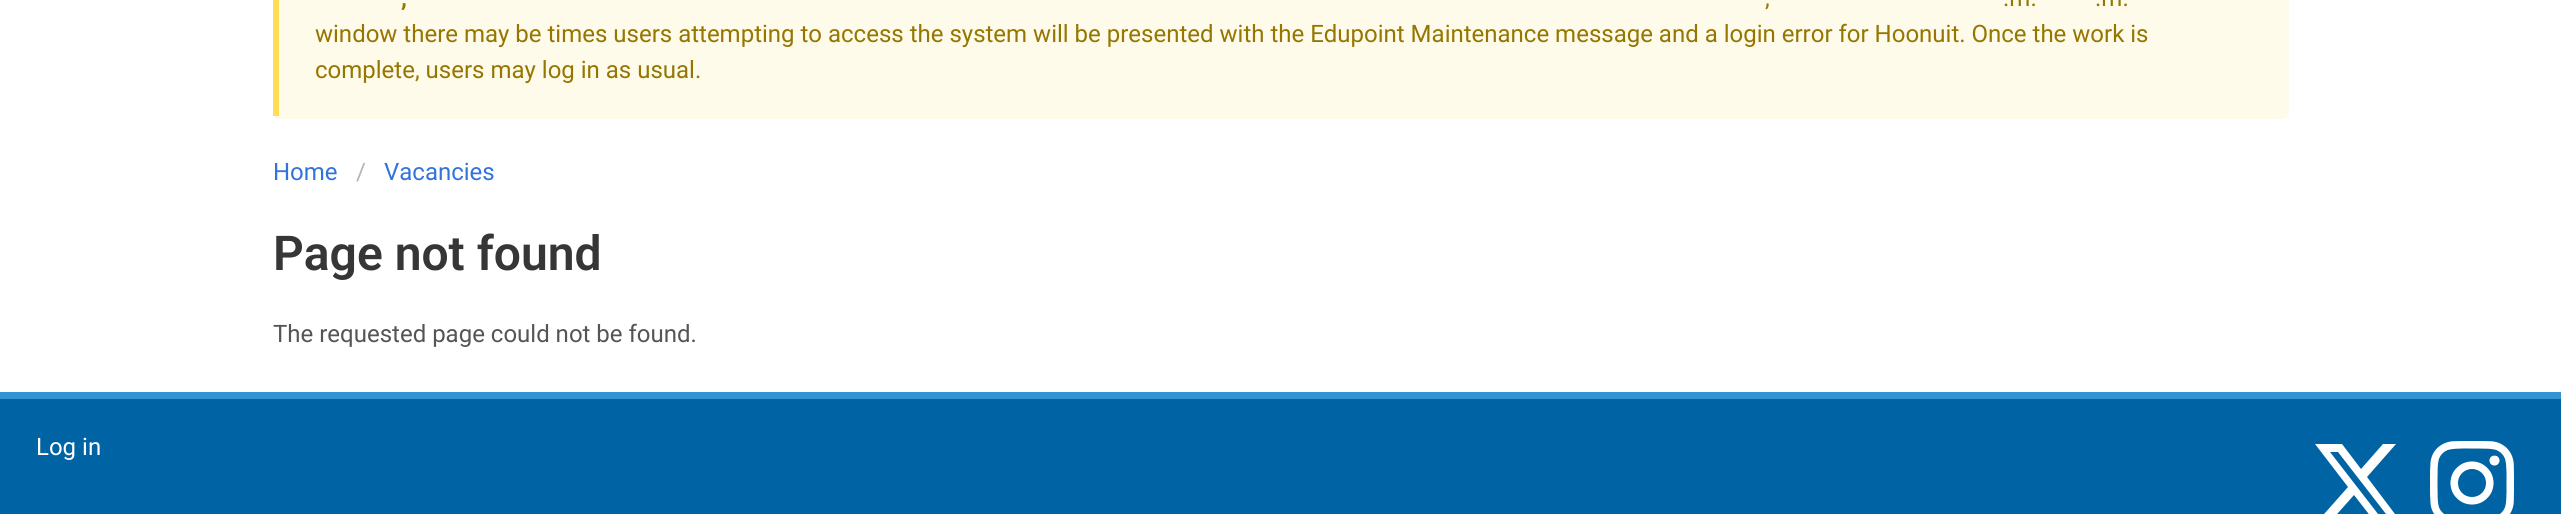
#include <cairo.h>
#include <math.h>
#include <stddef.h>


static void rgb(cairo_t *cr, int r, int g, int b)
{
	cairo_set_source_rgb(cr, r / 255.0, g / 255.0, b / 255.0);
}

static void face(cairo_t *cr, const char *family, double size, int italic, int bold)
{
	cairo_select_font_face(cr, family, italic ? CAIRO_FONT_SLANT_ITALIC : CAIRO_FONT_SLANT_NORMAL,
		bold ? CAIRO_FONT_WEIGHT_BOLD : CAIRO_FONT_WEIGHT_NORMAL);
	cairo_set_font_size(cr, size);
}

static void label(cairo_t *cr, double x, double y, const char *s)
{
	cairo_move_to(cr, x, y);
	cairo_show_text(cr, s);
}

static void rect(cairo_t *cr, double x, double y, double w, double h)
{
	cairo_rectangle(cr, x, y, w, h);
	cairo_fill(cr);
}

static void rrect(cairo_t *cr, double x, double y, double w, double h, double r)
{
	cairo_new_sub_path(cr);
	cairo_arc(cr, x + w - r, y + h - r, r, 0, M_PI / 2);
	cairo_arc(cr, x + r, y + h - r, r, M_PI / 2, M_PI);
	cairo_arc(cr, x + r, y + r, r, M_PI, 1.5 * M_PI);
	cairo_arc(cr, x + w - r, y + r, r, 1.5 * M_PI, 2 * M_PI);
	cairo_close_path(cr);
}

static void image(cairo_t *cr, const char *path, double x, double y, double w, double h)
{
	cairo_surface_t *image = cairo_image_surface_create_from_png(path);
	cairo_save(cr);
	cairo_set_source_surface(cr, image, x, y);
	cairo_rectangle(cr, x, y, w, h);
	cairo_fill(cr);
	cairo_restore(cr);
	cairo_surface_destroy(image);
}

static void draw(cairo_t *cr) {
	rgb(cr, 255, 255, 255);
	cairo_paint(cr);
	rgb(cr, 255, 251, 235);
	rrect(cr, 273, -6, 2016, 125, 6);
	cairo_fill(cr);
	rgb(cr, 255, 221, 87);
	rect(cr, 273, 0, 6, 116);
	face(cr, "Roboto", 24, 0, 1);
	rgb(cr, 148, 118, 0);
	label(cr, 401, 6, ",");
	face(cr, "Roboto", 24, 0, 0);
	label(cr, 1765, 6, ",");
	label(cr, 2003, 6, ".m.");
	label(cr, 2095, 6, ".m.");
	label(cr, 315, 42, "window there may be times users attempting to access the system will be presented with the Edupoint Maintenance message and a login error for Hoonuit. Once the work is");
	label(cr, 315, 78, "complete, users may log in as usual.");
	rgb(cr, 50, 115, 220);
	label(cr, 273, 180, "Home");
	rgb(cr, 181, 181, 181);
	label(cr, 356, 180, "/");
	rgb(cr, 50, 115, 220);
	label(cr, 384, 180, "Vacancies");
	face(cr, "Roboto SemiBold", 48, 0, 0);
	rgb(cr, 54, 54, 54);
	label(cr, 273, 270, "Page not found");
	face(cr, "Roboto", 24, 0, 0);
	rgb(cr, 85, 85, 85);
	label(cr, 273, 342, "The requested page could not be found.");
	rgb(cr, 0, 99, 164);
	rect(cr, 0, 399, 2561, 115);
	rgb(cr, 52, 148, 210);
	rect(cr, 0, 392, 2561, 7);
	rgb(cr, 255, 255, 255);
	label(cr, 36, 455, "Log in");
	cairo_new_path(cr);
	cairo_move_to(cr, 2383, 444);
	cairo_line_to(cr, 2396, 444);
	cairo_line_to(cr, 2383, 444);
	cairo_line_to(cr, 2396, 444);
	cairo_line_to(cr, 2367, 477);
	cairo_line_to(cr, 2401, 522);
	cairo_line_to(cr, 2375, 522);
	cairo_line_to(cr, 2354, 495);
	cairo_line_to(cr, 2330, 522);
	cairo_line_to(cr, 2317, 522);
	cairo_line_to(cr, 2348, 487);
	cairo_line_to(cr, 2315, 444);
	cairo_line_to(cr, 2342, 444);
	cairo_line_to(cr, 2361, 469);
	cairo_close_path(cr);
	cairo_move_to(cr, 2378, 514);
	cairo_line_to(cr, 2386, 514);
	cairo_line_to(cr, 2378, 514);
	cairo_line_to(cr, 2386, 514);
	cairo_line_to(cr, 2338, 452);
	cairo_line_to(cr, 2330, 452);
	cairo_close_path(cr);
	cairo_fill(cr);
	image(cr, "image0.png", 2430, 441, 84, 73);
}

int main(void) {
	cairo_surface_t *surface = cairo_image_surface_create(CAIRO_FORMAT_RGB24, 2561, 514);
	cairo_t *cr = cairo_create(surface);
	cairo_font_options_t *options = cairo_font_options_create();
	cairo_font_options_set_hint_metrics(options, CAIRO_HINT_METRICS_OFF);
	cairo_font_options_set_hint_style(options, CAIRO_HINT_STYLE_NONE);
	cairo_set_font_options(cr, options);
	cairo_set_miter_limit(cr, 4);
	draw(cr);
	cairo_surface_write_to_png(surface, "render.png");
	cairo_font_options_destroy(options);
	cairo_destroy(cr);
	cairo_surface_destroy(surface);
	return 0;
}
